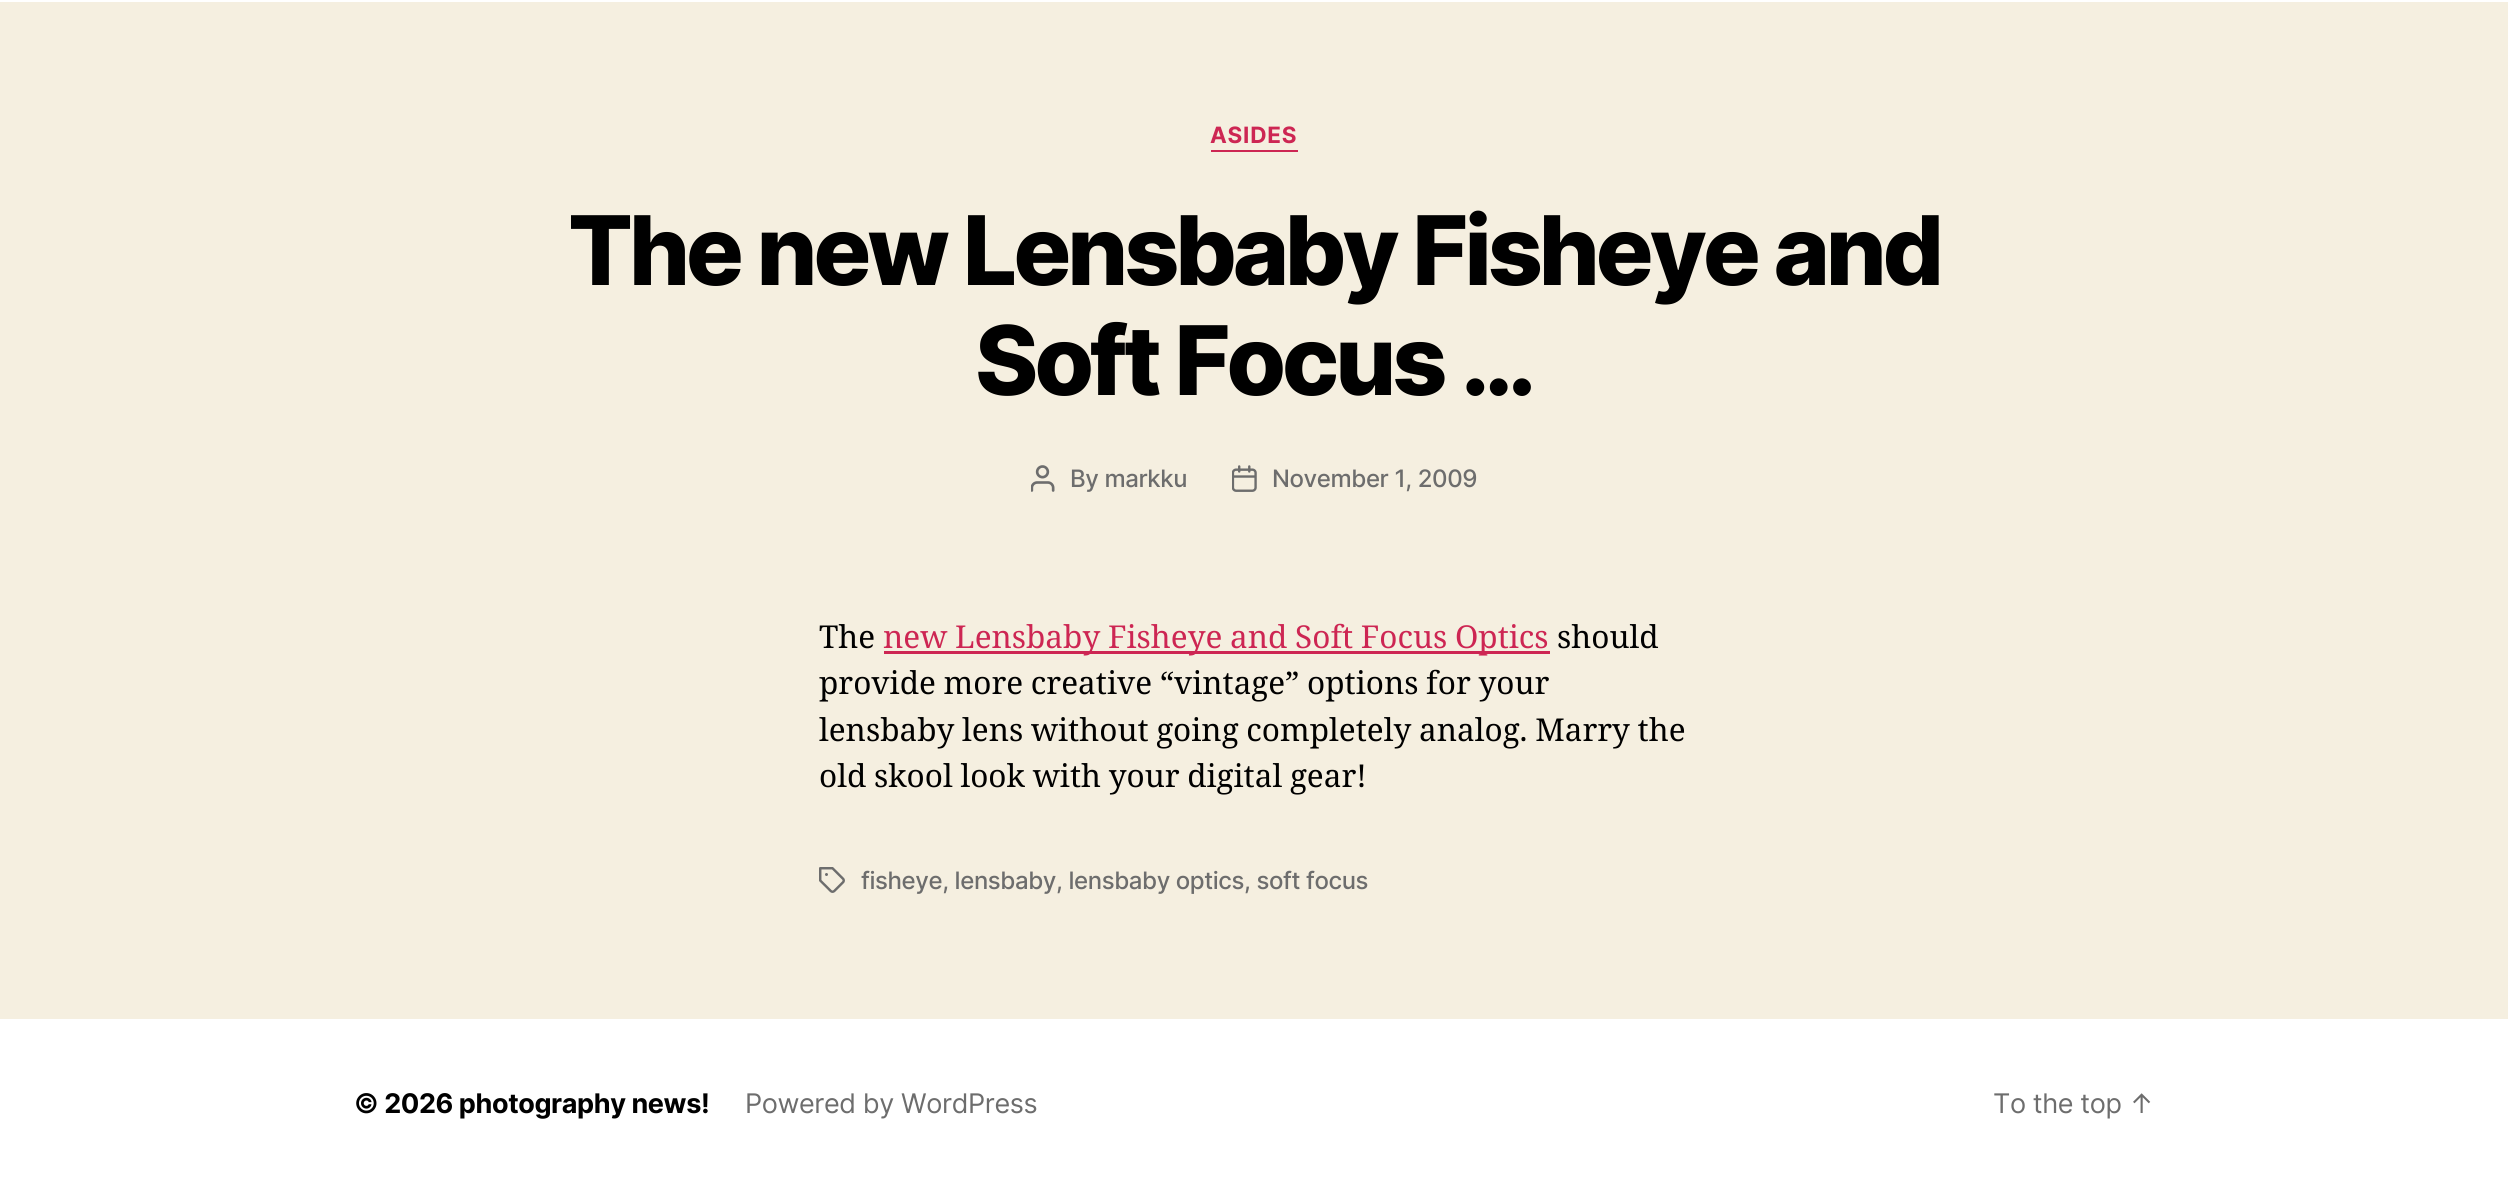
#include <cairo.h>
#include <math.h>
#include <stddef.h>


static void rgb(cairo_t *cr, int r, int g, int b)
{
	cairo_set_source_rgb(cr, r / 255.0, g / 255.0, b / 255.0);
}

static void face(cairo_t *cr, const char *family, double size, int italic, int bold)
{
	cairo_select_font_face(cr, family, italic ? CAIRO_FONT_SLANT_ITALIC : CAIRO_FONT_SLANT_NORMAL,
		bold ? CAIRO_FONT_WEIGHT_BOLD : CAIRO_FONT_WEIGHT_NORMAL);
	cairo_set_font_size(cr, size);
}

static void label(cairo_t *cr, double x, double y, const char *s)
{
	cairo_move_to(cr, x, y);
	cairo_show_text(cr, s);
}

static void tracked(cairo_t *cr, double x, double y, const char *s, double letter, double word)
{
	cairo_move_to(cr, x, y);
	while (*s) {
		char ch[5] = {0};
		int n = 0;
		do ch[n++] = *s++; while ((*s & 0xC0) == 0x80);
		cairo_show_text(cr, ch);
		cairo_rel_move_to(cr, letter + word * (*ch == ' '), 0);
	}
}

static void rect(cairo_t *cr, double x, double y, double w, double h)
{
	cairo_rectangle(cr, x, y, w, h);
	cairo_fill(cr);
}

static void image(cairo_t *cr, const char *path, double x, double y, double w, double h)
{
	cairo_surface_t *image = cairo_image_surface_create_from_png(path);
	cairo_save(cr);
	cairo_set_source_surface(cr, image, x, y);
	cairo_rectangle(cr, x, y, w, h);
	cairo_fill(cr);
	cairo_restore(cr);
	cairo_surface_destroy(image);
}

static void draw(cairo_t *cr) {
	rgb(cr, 245, 239, 224);
	cairo_paint(cr);
	rgb(cr, 255, 255, 255);
	rect(cr, 0, 0, 2508, 2);
	rgb(cr, 205, 38, 83);
	rect(cr, 1211, 150, 87, 2);
	face(cr, "Inter", 22.5, 0, 1);
	tracked(cr, 1210, 143, "ASIDES", 0.75, 0);
	face(cr, "Inter ExtraBold", 96, 0, 0);
	rgb(cr, 0, 0, 0);
	tracked(cr, 568, 285, "The new Lensbaby Fisheye and", -4, 0);
	tracked(cr, 975, 395, "Soft Focus …", -4, 0);
	image(cr, "image0.png", 1031, 465, 24, 27);
	face(cr, "Inter Medium", 24, 0, 0);
	rgb(cr, 109, 109, 109);
	tracked(cr, 1070, 487, "By markku", -0.4, 0);
	image(cr, "image1.png", 1232, 465, 25, 27);
	tracked(cr, 1272, 487, "November 1, 2009", -0.4, 0);
	face(cr, "Noto Serif", 31.5, 0, 0);
	rgb(cr, 0, 0, 0);
	label(cr, 819, 648, "The");
	rgb(cr, 205, 38, 83);
	rect(cr, 884, 651, 666, 3);
	tracked(cr, 883, 648, "new Lensbaby Fisheye and Soft Focus Optics", 0, -0.5);
	rgb(cr, 0, 0, 0);
	label(cr, 1557, 648, "should");
	tracked(cr, 819, 694, "provide more creative “vintage” options for your", 0, -0.5);
	tracked(cr, 819, 741, "lensbaby lens without going completely analog. Marry the", 0, -0.5);
	tracked(cr, 819, 787, "old skool look with your digital gear!", 0, -0.5);
	image(cr, "image2.png", 819, 867, 26, 26);
	face(cr, "Inter Medium", 24, 0, 0);
	rgb(cr, 109, 109, 109);
	tracked(cr, 861, 889, "fisheye, lensbaby, lensbaby optics, soft focus", -0.4, 0);
	rgb(cr, 255, 255, 255);
	rect(cr, 0, 1019, 2508, 164);
	face(cr, "Inter", 27, 0, 1);
	rgb(cr, 0, 0, 0);
	tracked(cr, 354, 1113, "© 2026 photography news!", -0.4, 0);
	face(cr, "Inter", 27, 0, 0);
	rgb(cr, 109, 109, 109);
	tracked(cr, 745, 1113, "Powered by WordPress", -0.4, 0);
	tracked(cr, 1993, 1113, "To the top ↑", -0.4, 0);
}

int main(void) {
	cairo_surface_t *surface = cairo_image_surface_create(CAIRO_FORMAT_RGB24, 2508, 1183);
	cairo_t *cr = cairo_create(surface);
	cairo_font_options_t *options = cairo_font_options_create();
	cairo_font_options_set_hint_metrics(options, CAIRO_HINT_METRICS_OFF);
	cairo_font_options_set_hint_style(options, CAIRO_HINT_STYLE_NONE);
	cairo_set_font_options(cr, options);
	cairo_set_miter_limit(cr, 4);
	draw(cr);
	cairo_surface_write_to_png(surface, "render.png");
	cairo_font_options_destroy(options);
	cairo_destroy(cr);
	cairo_surface_destroy(surface);
	return 0;
}
